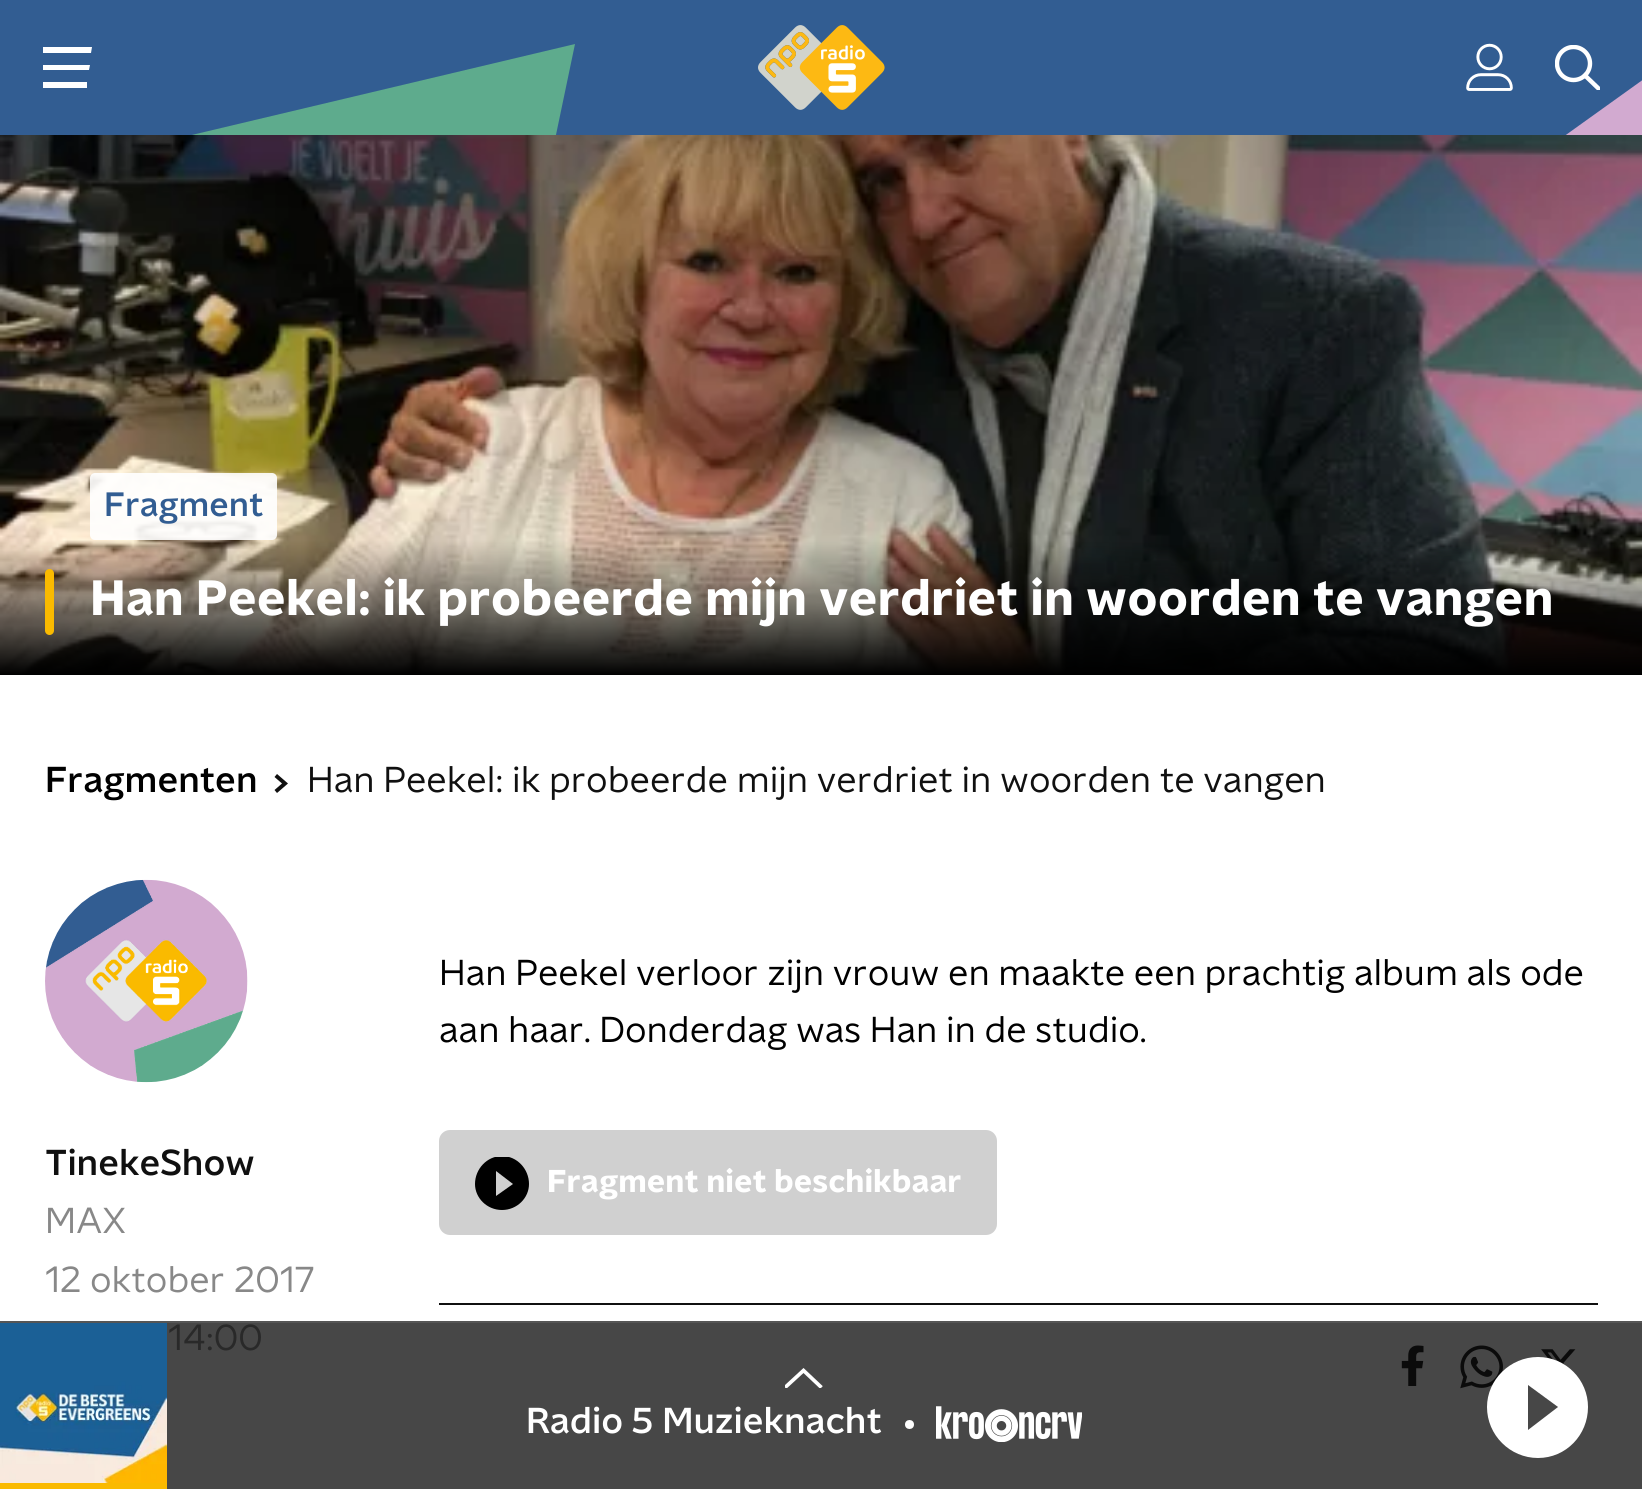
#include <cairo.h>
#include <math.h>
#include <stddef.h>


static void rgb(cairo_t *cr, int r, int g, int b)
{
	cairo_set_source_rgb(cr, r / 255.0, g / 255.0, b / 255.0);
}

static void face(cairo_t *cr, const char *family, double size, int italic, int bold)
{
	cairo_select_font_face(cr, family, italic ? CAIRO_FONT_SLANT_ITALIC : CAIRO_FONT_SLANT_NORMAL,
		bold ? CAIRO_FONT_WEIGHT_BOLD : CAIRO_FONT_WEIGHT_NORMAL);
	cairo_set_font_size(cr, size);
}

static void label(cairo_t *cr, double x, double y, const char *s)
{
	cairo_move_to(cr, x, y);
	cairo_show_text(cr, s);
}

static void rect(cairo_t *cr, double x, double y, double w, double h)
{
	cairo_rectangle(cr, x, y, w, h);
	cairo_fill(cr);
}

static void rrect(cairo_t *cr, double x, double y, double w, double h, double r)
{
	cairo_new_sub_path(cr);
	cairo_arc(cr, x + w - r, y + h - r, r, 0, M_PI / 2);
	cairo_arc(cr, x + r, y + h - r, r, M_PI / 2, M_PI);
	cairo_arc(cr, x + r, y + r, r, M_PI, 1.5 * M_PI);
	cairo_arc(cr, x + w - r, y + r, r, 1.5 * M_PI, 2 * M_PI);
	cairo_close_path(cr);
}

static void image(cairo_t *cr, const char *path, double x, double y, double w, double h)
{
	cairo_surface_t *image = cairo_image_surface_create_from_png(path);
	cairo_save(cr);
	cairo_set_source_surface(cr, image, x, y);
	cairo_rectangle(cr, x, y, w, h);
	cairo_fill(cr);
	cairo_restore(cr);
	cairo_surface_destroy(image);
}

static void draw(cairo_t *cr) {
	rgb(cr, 255, 255, 255);
	cairo_paint(cr);
	rgb(cr, 71, 71, 71);
	rect(cr, 167, 1323, 1475, 166);
	rgb(cr, 50, 93, 146);
	rect(cr, 0, 0, 1642, 135);
	rgb(cr, 255, 255, 255);
	cairo_new_path(cr);
	cairo_move_to(cr, 43, 47);
	cairo_line_to(cr, 92, 47);
	cairo_line_to(cr, 91, 53);
	cairo_line_to(cr, 43, 53);
	cairo_close_path(cr);
	cairo_move_to(cr, 43, 65);
	cairo_line_to(cr, 90, 65);
	cairo_line_to(cr, 89, 70);
	cairo_line_to(cr, 43, 70);
	cairo_close_path(cr);
	cairo_move_to(cr, 43, 82);
	cairo_line_to(cr, 87, 82);
	cairo_line_to(cr, 87, 88);
	cairo_line_to(cr, 43, 88);
	cairo_close_path(cr);
	cairo_fill(cr);
	image(cr, "image0.png", 758, 25, 127, 85);
	image(cr, "image1.png", 1466, 43, 47, 48);
	cairo_save(cr);
	cairo_rectangle(cr, 0, 0, 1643, 135);
	cairo_clip(cr);
	rgb(cr, 210, 170, 208);
	cairo_new_path(cr);
	cairo_move_to(cr, 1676, 56);
	cairo_line_to(cr, 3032, 1194);
	cairo_line_to(cr, 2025, 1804);
	cairo_line_to(cr, 450, 935);
	cairo_line_to(cr, 451, 934);
	cairo_close_path(cr);
	cairo_fill(cr);
	cairo_restore(cr);
	cairo_save(cr);
	cairo_rectangle(cr, 1555, 45, 45, 45);
	cairo_clip(cr);
	cairo_arc(cr, 1573.5, 63.5, 16.5, 0, 2 * M_PI);
	cairo_set_line_width(cr, 4.4);
	cairo_stroke(cr);
	cairo_new_path(cr);
	cairo_move_to(cr, 1585, 75.5);
	cairo_line_to(cr, 1598.5, 88.5);
	cairo_set_line_cap(cr, CAIRO_LINE_CAP_SQUARE);
	cairo_stroke(cr);
	cairo_restore(cr);
	cairo_save(cr);
	cairo_rectangle(cr, 0, 43, 576, 92);
	cairo_clip(cr);
	rgb(cr, 94, 171, 141);
	cairo_new_path(cr);
	cairo_move_to(cr, 575, 44);
	cairo_line_to(cr, 340, 1167);
	cairo_line_to(cr, -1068, 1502);
	cairo_line_to(cr, -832, 378);
	cairo_close_path(cr);
	cairo_fill(cr);
	cairo_restore(cr);
	image(cr, "image2.png", 0, 135, 1642, 540);
	cairo_set_source_rgba(cr, 1, 1, 1, 0.9);
	rrect(cr, 90, 473, 187, 67, 5);
	cairo_fill(cr);
	face(cr, "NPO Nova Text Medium", 33.75, 0, 0);
	rgb(cr, 50, 93, 146);
	label(cr, 104, 516, "Fragment");
	rgb(cr, 250, 186, 0);
	rrect(cr, 45, 569, 9, 66, 4.5);
	cairo_fill(cr);
	face(cr, "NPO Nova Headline", 49.5, 0, 1);
	rgb(cr, 255, 255, 255);
	label(cr, 90, 615, "Han Peekel: ik probeerde mijn verdriet in woorden te vangen");
	face(cr, "NPO Nova Text Medium", 36, 0, 0);
	rgb(cr, 0, 0, 0);
	label(cr, 45, 792, "Fragmenten");
	rgb(cr, 16, 16, 16);
	cairo_set_fill_rule(cr, CAIRO_FILL_RULE_EVEN_ODD);
	cairo_new_path(cr);
	cairo_move_to(cr, 277, 774);
	cairo_line_to(cr, 288, 783.5);
	cairo_line_to(cr, 277, 793);
	cairo_line_to(cr, 274.5, 790);
	cairo_line_to(cr, 282, 783.5);
	cairo_line_to(cr, 274.5, 777);
	cairo_close_path(cr);
	cairo_fill(cr);
	face(cr, "NPO Nova Text", 36, 0, 0);
	label(cr, 307, 792, "Han Peekel: ik probeerde mijn verdriet in woorden te vangen");
	rgb(cr, 0, 0, 0);
	label(cr, 439, 985, "Han Peekel verloor zijn vrouw en maakte een prachtig album als ode");
	label(cr, 439, 1042, "aan haar. Donderdag was Han in de studio.");
	rgb(cr, 208, 208, 208);
	rrect(cr, 439, 1130, 558, 105, 11);
	cairo_fill(cr);
	cairo_save(cr);
	cairo_set_fill_rule(cr, CAIRO_FILL_RULE_WINDING);
	cairo_rectangle(cr, 475, 1157, 54, 54);
	cairo_clip(cr);
	rgb(cr, 0, 0, 0);
	cairo_new_path(cr);
	cairo_move_to(cr, 502, 1156);
	cairo_curve_to(cr, 487, 1156, 475, 1169, 475, 1184);
	cairo_curve_to(cr, 475, 1198, 487, 1210, 502, 1210);
	cairo_curve_to(cr, 517, 1210, 529, 1198, 529, 1184);
	cairo_curve_to(cr, 529, 1169, 517, 1156, 502, 1156);
	cairo_close_path(cr);
	cairo_move_to(cr, 496, 1196);
	cairo_line_to(cr, 496, 1171);
	cairo_line_to(cr, 513, 1184);
	cairo_close_path(cr);
	cairo_fill(cr);
	cairo_restore(cr);
	face(cr, "NPO Nova Headline", 31.5, 0, 1);
	rgb(cr, 255, 255, 255);
	label(cr, 547, 1192, "Fragment niet beschikbaar");
	rgb(cr, 16, 16, 16);
	rect(cr, 439, 1303, 1159, 2);
	image(cr, "image3.png", 1401, 1345, 23, 41);
	image(cr, "image4.png", 1460, 1345, 43, 44);
	image(cr, "image5.png", 1541, 1349, 35, 17);
	image(cr, "image6.png", 45, 879, 203, 204);
	face(cr, "NPO Nova Text Medium", 36, 0, 0);
	label(cr, 45, 1175, "TinekeShow");
	face(cr, "NPO Nova Text", 36, 0, 0);
	rgb(cr, 136, 136, 136);
	label(cr, 45, 1233, "MAX");
	label(cr, 45, 1292, "12 oktober 2017");
	rgb(cr, 41, 41, 41);
	label(cr, 168, 1350, "14:00");
	rgb(cr, 86, 86, 86);
	rect(cr, 0, 1321, 1642, 2);
	image(cr, "image7.png", 0, 1323, 167, 160);
	rgb(cr, 250, 186, 0);
	rect(cr, 0, 1483, 167, 6);
	cairo_save(cr);
	cairo_set_fill_rule(cr, CAIRO_FILL_RULE_WINDING);
	cairo_rectangle(cr, 785, 1366, 41, 22);
	cairo_clip(cr);
	cairo_new_path(cr);
	cairo_move_to(cr, 821.5, 1387.5);
	cairo_line_to(cr, 803.5, 1370.5);
	cairo_line_to(cr, 785, 1387.5);
	rgb(cr, 255, 255, 255);
	cairo_set_line_width(cr, 3.7);
	cairo_stroke(cr);
	cairo_restore(cr);
	face(cr, "NPO Nova Text Medium", 36, 0, 0);
	rgb(cr, 255, 255, 255);
	label(cr, 526, 1433, "Radio 5 Muzieknacht");
	cairo_new_path(cr);
	cairo_arc(cr, 909.5, 1424.5, 4.5, 0, 2 * M_PI);
	cairo_fill(cr);
	image(cr, "image8.png", 936, 1406, 146, 36);
	cairo_set_fill_rule(cr, CAIRO_FILL_RULE_WINDING);
	cairo_new_path(cr);
	cairo_move_to(cr, 1538, 1357);
	cairo_curve_to(cr, 1510, 1357, 1487, 1380, 1487, 1407);
	cairo_curve_to(cr, 1487, 1435, 1510, 1458, 1538, 1458);
	cairo_curve_to(cr, 1566, 1458, 1588, 1435, 1588, 1407);
	cairo_curve_to(cr, 1588, 1380, 1566, 1357, 1538, 1357);
	cairo_close_path(cr);
	cairo_move_to(cr, 1528, 1430);
	cairo_line_to(cr, 1528, 1385);
	cairo_line_to(cr, 1558, 1407);
	cairo_close_path(cr);
	cairo_fill(cr);
}

int main(void) {
	cairo_surface_t *surface = cairo_image_surface_create(CAIRO_FORMAT_RGB24, 1642, 1489);
	cairo_t *cr = cairo_create(surface);
	cairo_font_options_t *options = cairo_font_options_create();
	cairo_font_options_set_hint_metrics(options, CAIRO_HINT_METRICS_OFF);
	cairo_font_options_set_hint_style(options, CAIRO_HINT_STYLE_NONE);
	cairo_set_font_options(cr, options);
	cairo_set_miter_limit(cr, 4);
	draw(cr);
	cairo_surface_write_to_png(surface, "render.png");
	cairo_font_options_destroy(options);
	cairo_destroy(cr);
	cairo_surface_destroy(surface);
	return 0;
}
